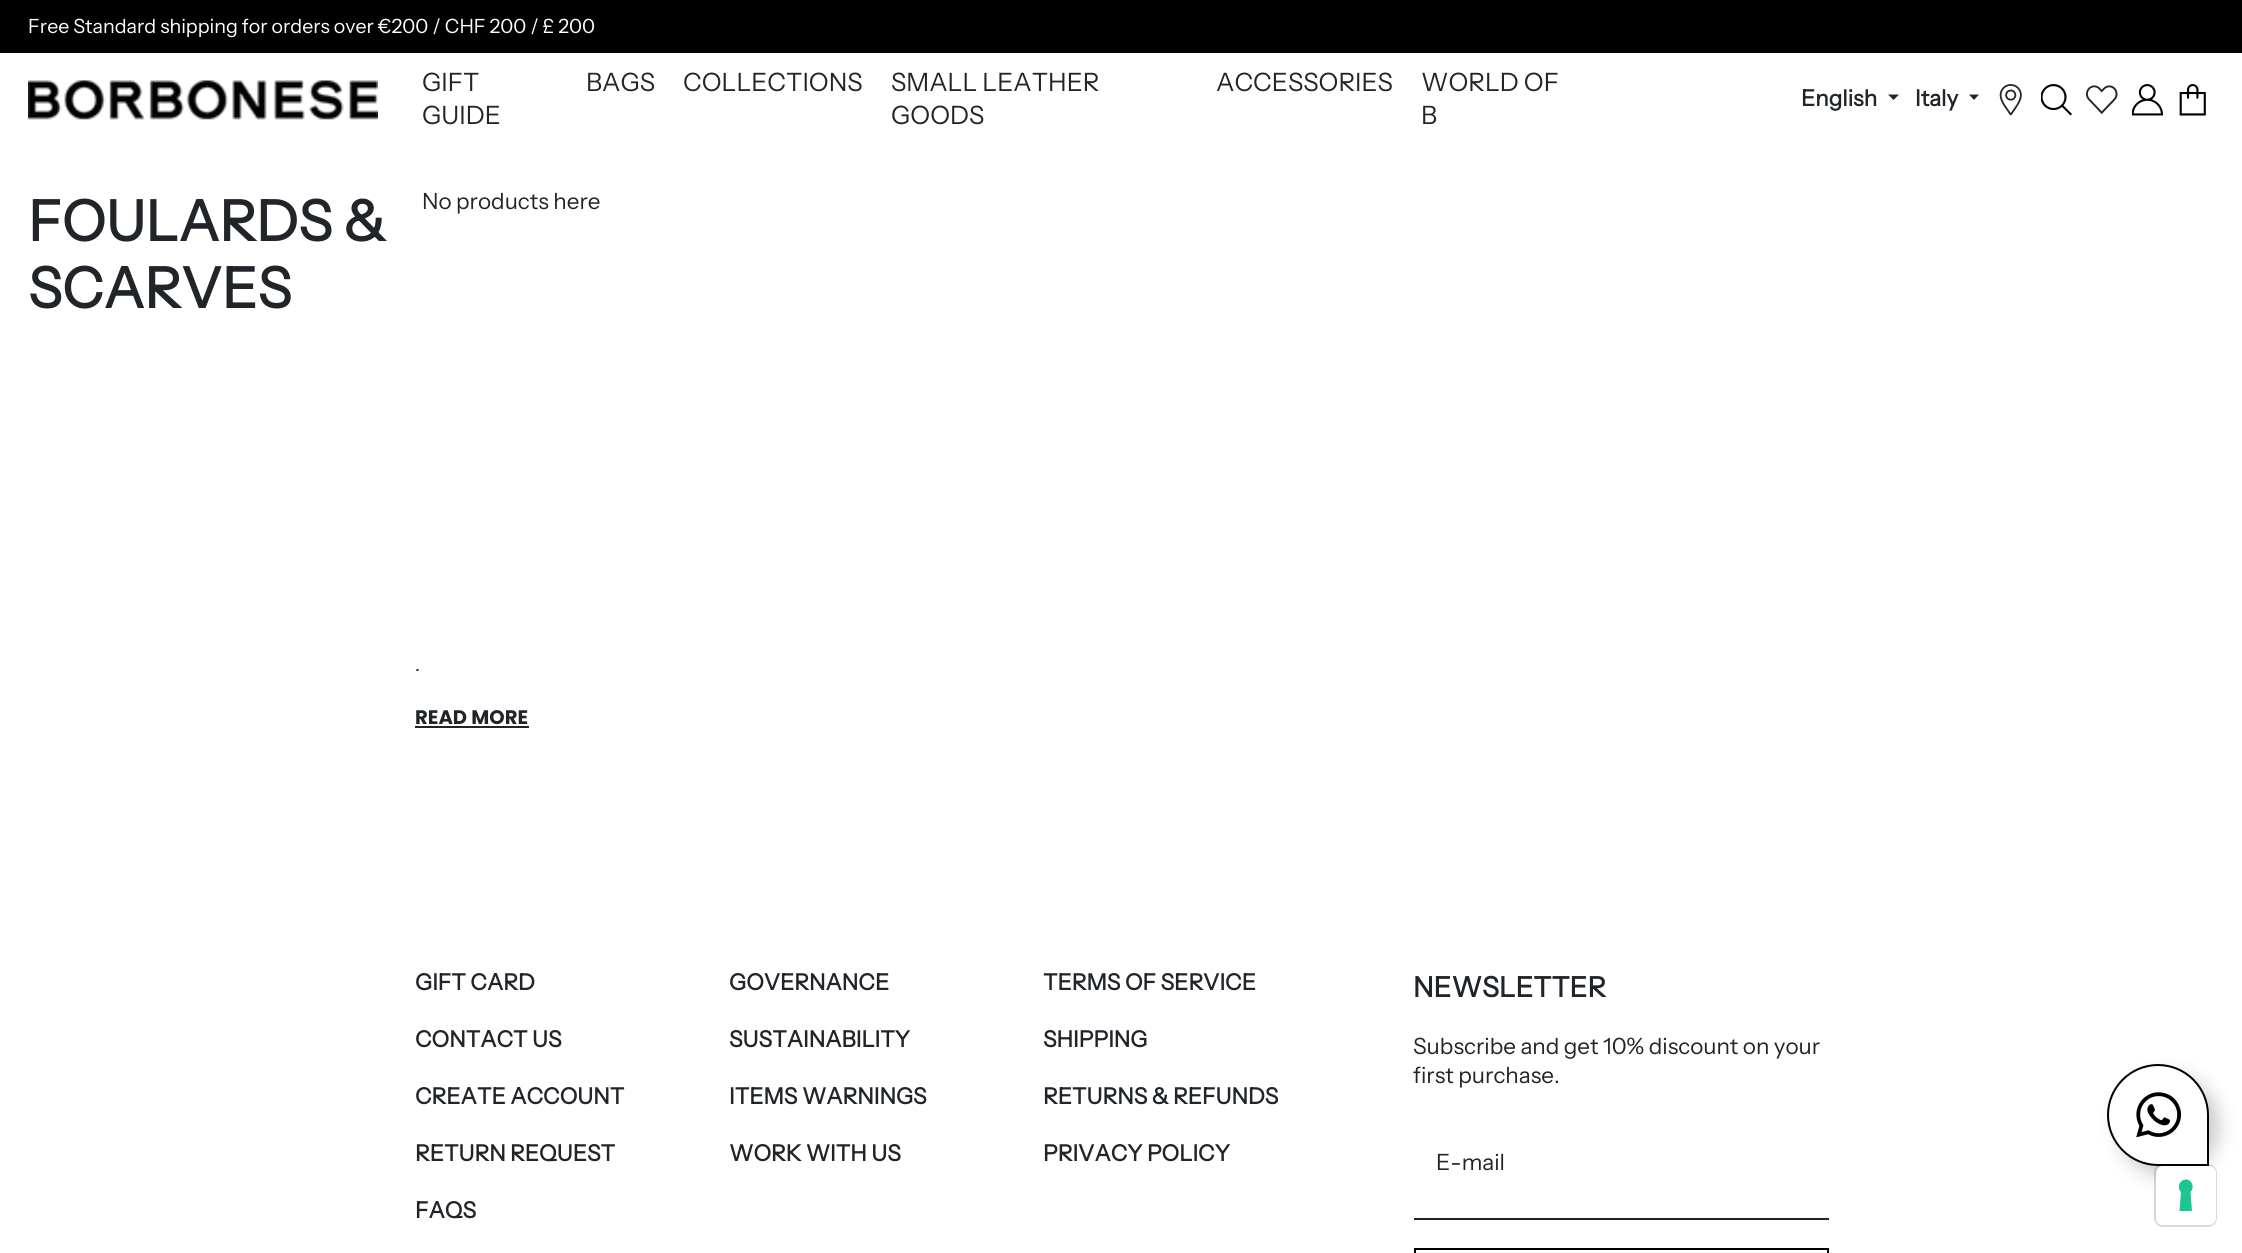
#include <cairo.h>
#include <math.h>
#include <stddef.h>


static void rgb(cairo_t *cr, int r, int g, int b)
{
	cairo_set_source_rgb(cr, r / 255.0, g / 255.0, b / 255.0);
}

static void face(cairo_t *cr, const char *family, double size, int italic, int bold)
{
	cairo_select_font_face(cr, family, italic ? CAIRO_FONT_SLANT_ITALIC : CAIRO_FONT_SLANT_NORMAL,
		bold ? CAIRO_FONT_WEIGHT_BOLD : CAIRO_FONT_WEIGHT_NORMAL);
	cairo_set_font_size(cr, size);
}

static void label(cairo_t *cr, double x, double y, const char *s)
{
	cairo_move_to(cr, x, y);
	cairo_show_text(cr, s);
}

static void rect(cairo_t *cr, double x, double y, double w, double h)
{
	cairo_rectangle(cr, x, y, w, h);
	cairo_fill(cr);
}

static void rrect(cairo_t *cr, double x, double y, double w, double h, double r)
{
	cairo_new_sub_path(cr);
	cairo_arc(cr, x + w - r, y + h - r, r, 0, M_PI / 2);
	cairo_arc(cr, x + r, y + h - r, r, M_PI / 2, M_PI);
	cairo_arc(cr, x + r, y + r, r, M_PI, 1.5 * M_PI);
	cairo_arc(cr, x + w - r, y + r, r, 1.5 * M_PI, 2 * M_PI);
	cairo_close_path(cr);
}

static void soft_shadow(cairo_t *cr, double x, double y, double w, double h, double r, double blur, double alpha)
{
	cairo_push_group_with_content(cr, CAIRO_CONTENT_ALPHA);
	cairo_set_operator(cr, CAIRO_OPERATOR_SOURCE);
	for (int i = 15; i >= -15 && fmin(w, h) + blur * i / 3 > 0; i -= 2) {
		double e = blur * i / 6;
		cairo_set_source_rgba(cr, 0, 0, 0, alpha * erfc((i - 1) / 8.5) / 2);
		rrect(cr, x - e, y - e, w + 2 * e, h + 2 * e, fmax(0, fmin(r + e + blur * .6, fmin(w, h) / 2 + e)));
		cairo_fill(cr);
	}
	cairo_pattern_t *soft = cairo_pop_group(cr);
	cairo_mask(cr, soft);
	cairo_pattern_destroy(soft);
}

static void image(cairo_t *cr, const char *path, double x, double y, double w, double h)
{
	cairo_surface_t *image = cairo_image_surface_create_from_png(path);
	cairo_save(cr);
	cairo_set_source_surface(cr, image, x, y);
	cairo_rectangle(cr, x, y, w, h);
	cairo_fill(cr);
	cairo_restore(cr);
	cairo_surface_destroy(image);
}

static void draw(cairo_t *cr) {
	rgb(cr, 255, 255, 255);
	cairo_paint(cr);
	rgb(cr, 0, 0, 0);
	rect(cr, 0, 0, 2242, 53);
	face(cr, "Instrument Sans", 19.6, 0, 0);
	rgb(cr, 255, 255, 255);
	label(cr, 28, 33, "Free Standard shipping for orders over €200 / CHF 200 / £ 200");
	image(cr, "image0.png", 28, 80, 350, 40);
	face(cr, "Instrument Sans", 25.25, 0, 0);
	rgb(cr, 33, 37, 41);
	label(cr, 422, 91, "GIFT");
	label(cr, 422, 124, "GUIDE");
	label(cr, 586, 91, "BAGS");
	label(cr, 683, 91, "COLLECTIONS");
	label(cr, 891, 91, "SMALL LEATHER");
	label(cr, 891, 124, "GOODS");
	label(cr, 1216, 91, "ACCESSORIES");
	label(cr, 1421, 91, "WORLD OF");
	label(cr, 1421, 124, "B");
	face(cr, "Instrument Sans", 22.4, 0, 1);
	label(cr, 1801, 106, "English");
	cairo_new_path(cr);
	cairo_move_to(cr, 1888, 94.5);
	cairo_line_to(cr, 1899, 94.5);
	cairo_line_to(cr, 1893.5, 100);
	cairo_close_path(cr);
	cairo_fill(cr);
	label(cr, 1915, 106, "Italy");
	cairo_new_path(cr);
	cairo_move_to(cr, 1969, 94.5);
	cairo_line_to(cr, 1979, 94.5);
	cairo_line_to(cr, 1974, 100);
	cairo_close_path(cr);
	cairo_fill(cr);
	image(cr, "image1.png", 1999, 84, 23, 32);
	image(cr, "image2.png", 2041, 84, 31, 32);
	image(cr, "image3.png", 2086, 85, 32, 29);
	image(cr, "image4.png", 2132, 84, 31, 32);
	image(cr, "image5.png", 2179, 84, 27, 32);
	face(cr, "Instrument Sans", 56, 0, 1);
	label(cr, 28, 241, "FOULARDS &");
	label(cr, 28, 308, "SCARVES");
	face(cr, "Instrument Sans", 22.4, 0, 0);
	label(cr, 422, 209, "No products here");
	face(cr, "Instrument Sans", 19.6, 0, 0);
	label(cr, 415, 671, ".");
	face(cr, "Poppins", 19.6, 0, 1);
	label(cr, 415, 724, "READ MORE");
	rect(cr, 415, 726, 114, 2);
	face(cr, "Instrument Sans", 22.4, 0, 1);
	label(cr, 415, 990, "GIFT CARD");
	label(cr, 415, 1047, "CONTACT US");
	label(cr, 415, 1104, "CREATE ACCOUNT");
	label(cr, 415, 1161, "RETURN REQUEST");
	label(cr, 415, 1218, "FAQS");
	label(cr, 729, 990, "GOVERNANCE");
	label(cr, 729, 1047, "SUSTAINABILITY");
	label(cr, 729, 1104, "ITEMS WARNINGS");
	label(cr, 729, 1161, "WORK WITH US");
	label(cr, 1043, 990, "TERMS OF SERVICE");
	label(cr, 1043, 1047, "SHIPPING");
	label(cr, 1043, 1104, "RETURNS & REFUNDS");
	label(cr, 1043, 1161, "PRIVACY POLICY");
	face(cr, "Instrument Sans", 28, 0, 1);
	label(cr, 1413, 997, "NEWSLETTER");
	face(cr, "Instrument Sans", 22.4, 0, 0);
	label(cr, 1413, 1054, "Subscribe and get 10% discount on your");
	label(cr, 1413, 1083, "first purchase.");
	label(cr, 1436, 1170, "E-mail");
	rect(cr, 1414, 1218, 415, 2);
	cairo_rectangle(cr, 1415, 1249, 413, 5);
	rgb(cr, 0, 0, 0);
	cairo_stroke(cr);
	rgb(cr, 0, 0, 0);
	soft_shadow(cr, 2118, 1075, 101, 101, 50.5, 9, 0.2);
	rgb(cr, 255, 255, 255);
	cairo_new_path(cr);
	cairo_move_to(cr, 2158, 1065);
	cairo_curve_to(cr, 2185.5, 1065, 2208, 1087.5, 2208, 1115);
	cairo_line_to(cr, 2208, 1165);
	cairo_line_to(cr, 2158, 1165);
	cairo_curve_to(cr, 2130.5, 1165, 2108, 1142.5, 2108, 1115);
	cairo_curve_to(cr, 2108, 1087.5, 2130.5, 1065, 2158, 1065);
	cairo_close_path(cr);
	cairo_fill_preserve(cr);
	rgb(cr, 0, 0, 0);
	cairo_stroke(cr);
	image(cr, "image6.png", 2136, 1092, 46, 46);
	rrect(cr, 2155, 1165, 61, 61, 8);
	cairo_set_source_rgba(cr, 0, 0, 0, 0.15);
	cairo_stroke(cr);
	rgb(cr, 255, 255, 255);
	rrect(cr, 2156, 1166, 60, 59, 7);
	cairo_fill(cr);
	rgb(cr, 28, 198, 145);
	cairo_set_fill_rule(cr, CAIRO_FILL_RULE_EVEN_ODD);
	cairo_new_path(cr);
	cairo_move_to(cr, 2186, 1179.5);
	cairo_curve_to(cr, 2192, 1179.5, 2195, 1187.5, 2190.5, 1192);
	cairo_line_to(cr, 2192, 1211);
	cairo_line_to(cr, 2179.5, 1211);
	cairo_line_to(cr, 2181, 1192);
	cairo_curve_to(cr, 2176.5, 1187.5, 2179.5, 1179.5, 2186, 1179.5);
	cairo_close_path(cr);
	cairo_fill(cr);
}

int main(void) {
	cairo_surface_t *surface = cairo_image_surface_create(CAIRO_FORMAT_RGB24, 2242, 1253);
	cairo_t *cr = cairo_create(surface);
	cairo_font_options_t *options = cairo_font_options_create();
	cairo_font_options_set_hint_metrics(options, CAIRO_HINT_METRICS_OFF);
	cairo_font_options_set_hint_style(options, CAIRO_HINT_STYLE_NONE);
	cairo_set_font_options(cr, options);
	cairo_set_miter_limit(cr, 4);
	draw(cr);
	cairo_surface_write_to_png(surface, "render.png");
	cairo_font_options_destroy(options);
	cairo_destroy(cr);
	cairo_surface_destroy(surface);
	return 0;
}
